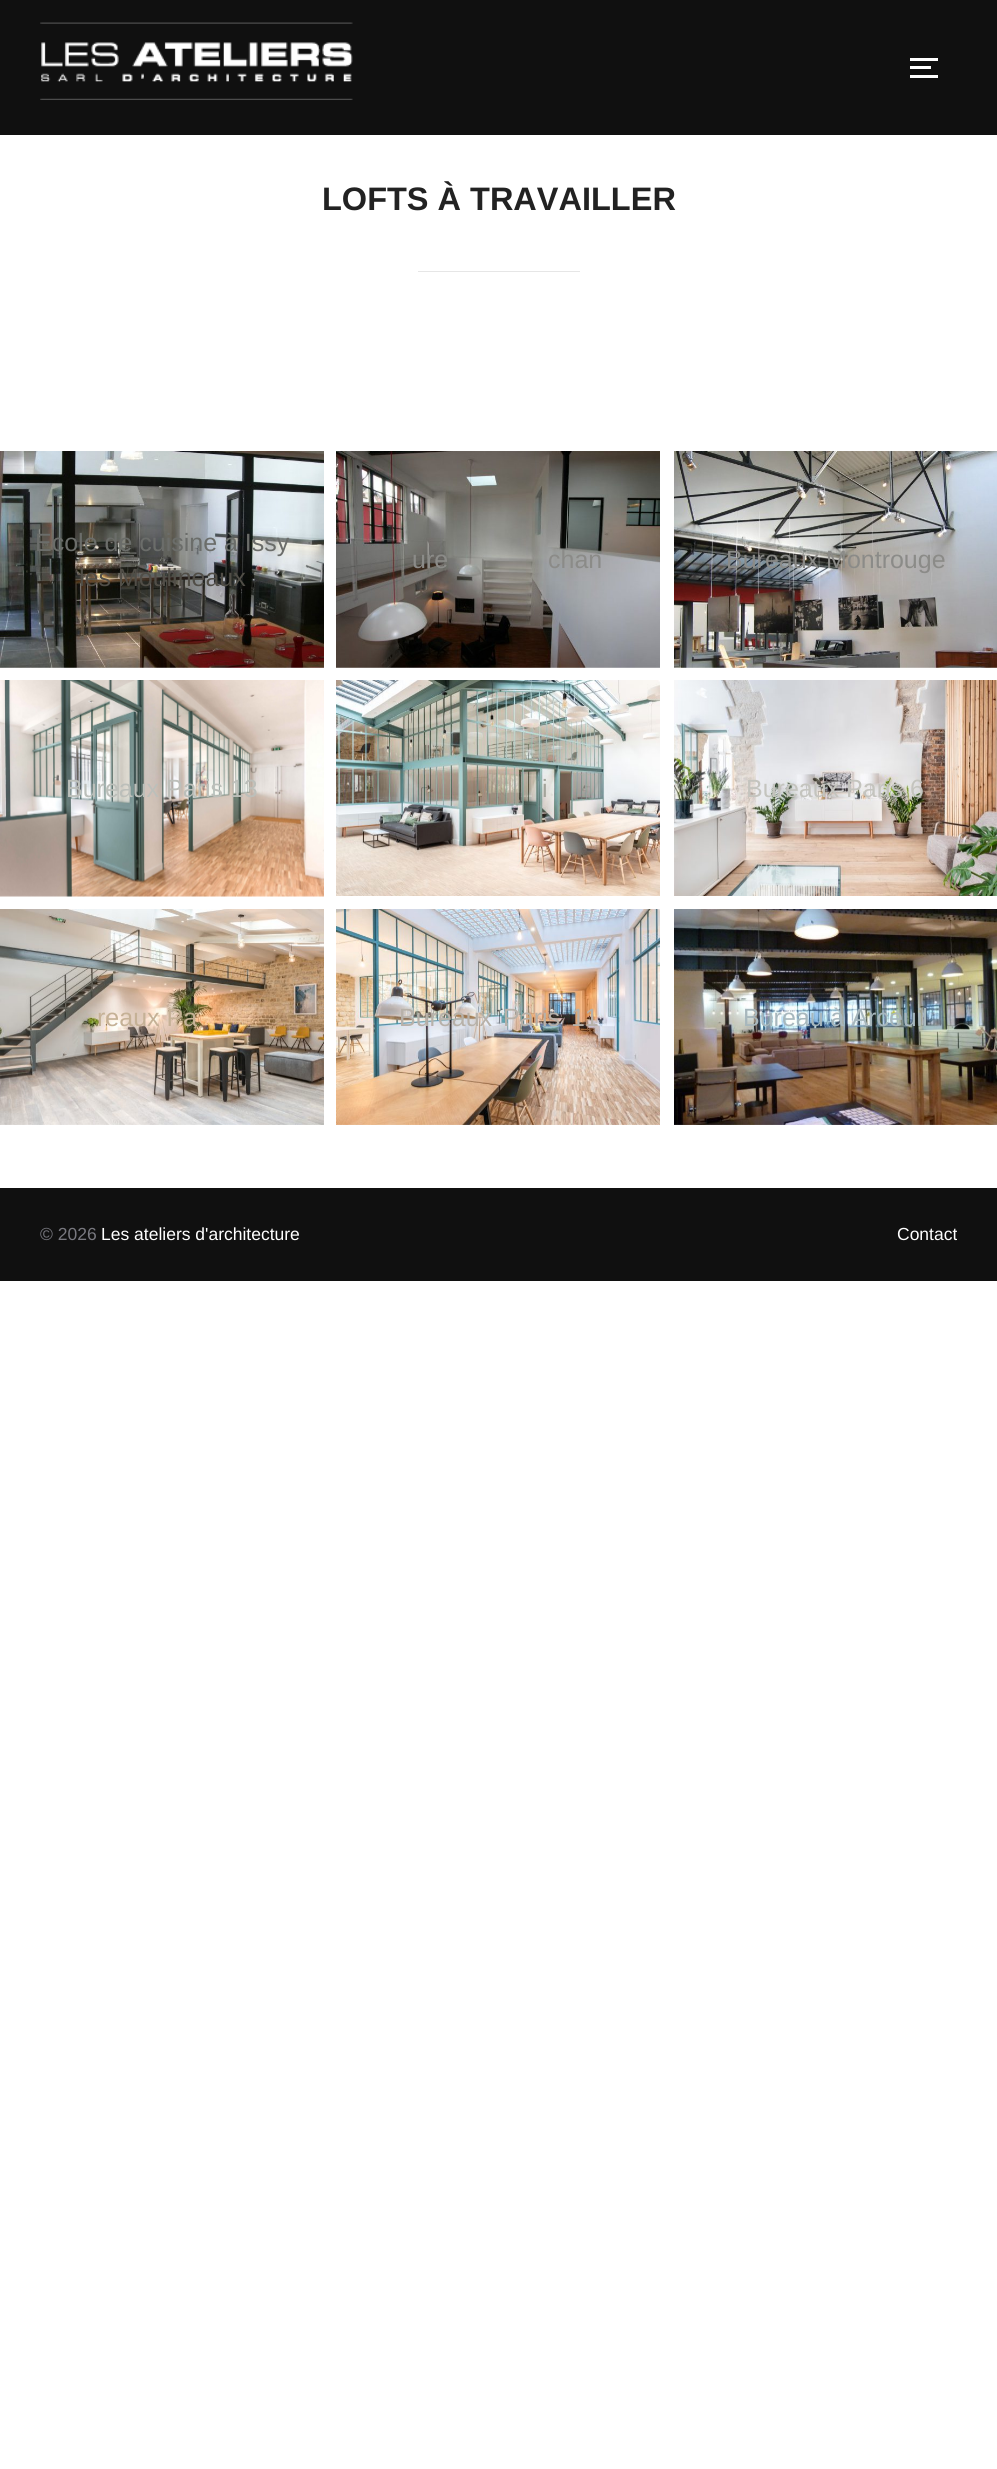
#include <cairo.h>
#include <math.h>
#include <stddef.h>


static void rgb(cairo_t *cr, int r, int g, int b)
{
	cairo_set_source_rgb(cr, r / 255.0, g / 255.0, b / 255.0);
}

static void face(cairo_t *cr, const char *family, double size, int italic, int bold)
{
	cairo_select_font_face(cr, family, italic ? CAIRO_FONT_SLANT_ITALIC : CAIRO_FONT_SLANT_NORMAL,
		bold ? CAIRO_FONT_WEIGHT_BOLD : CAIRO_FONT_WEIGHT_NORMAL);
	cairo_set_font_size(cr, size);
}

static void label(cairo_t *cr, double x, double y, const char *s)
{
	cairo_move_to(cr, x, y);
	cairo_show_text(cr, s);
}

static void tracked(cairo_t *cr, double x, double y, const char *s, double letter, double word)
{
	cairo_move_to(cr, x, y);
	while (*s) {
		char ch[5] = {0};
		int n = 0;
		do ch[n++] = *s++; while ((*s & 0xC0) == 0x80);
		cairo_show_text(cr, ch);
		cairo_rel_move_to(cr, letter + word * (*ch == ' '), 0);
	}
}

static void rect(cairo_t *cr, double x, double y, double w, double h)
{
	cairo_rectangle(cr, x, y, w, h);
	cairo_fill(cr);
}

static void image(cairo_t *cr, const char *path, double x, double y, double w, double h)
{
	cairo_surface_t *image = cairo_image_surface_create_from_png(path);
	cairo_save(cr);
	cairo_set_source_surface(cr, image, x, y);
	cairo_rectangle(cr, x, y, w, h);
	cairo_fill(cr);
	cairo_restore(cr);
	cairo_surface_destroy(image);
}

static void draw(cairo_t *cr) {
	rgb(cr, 255, 255, 255);
	cairo_paint(cr);
	rgb(cr, 16, 16, 16);
	rect(cr, 0, 0, 997, 135);
	image(cr, "image0.png", 40, 22, 313, 78);
	rgb(cr, 255, 255, 255);
	rect(cr, 910, 58, 28, 3);
	rect(cr, 910, 66, 21, 3);
	rect(cr, 910, 75, 28, 3);
	face(cr, "Liberation Sans", 32.5, 0, 1);
	rgb(cr, 34, 34, 34);
	label(cr, 322, 210, "LOFTS À TRAVAILLER");
	rgb(cr, 230, 230, 230);
	rect(cr, 418, 271, 162, 1);
	image(cr, "image1.png", 0, 451, 324, 217);
	face(cr, "Liberation Sans", 25, 0, 0);
	rgb(cr, 107, 109, 106);
	label(cr, 35, 551, "Ecole de cuisine à Issy");
	rgb(cr, 81, 78, 71);
	label(cr, 79, 586, "les Moulineaux");
	image(cr, "image2.png", 336, 451, 324, 217);
	rgb(cr, 139, 139, 136);
	label(cr, 412, 568, "ure");
	label(cr, 548, 568, "chan");
	image(cr, "image3.png", 674, 451, 323, 217);
	label(cr, 726, 568, "Bureaux Montrouge");
	image(cr, "image4.png", 0, 680, 324, 217);
	rgb(cr, 188, 191, 186);
	label(cr, 66, 797, "Bureaux Paris 13");
	image(cr, "image5.png", 336, 680, 324, 216);
	rgb(cr, 164, 164, 155);
	label(cr, 542, 797, "i");
	image(cr, "image6.png", 674, 680, 323, 216);
	rgb(cr, 196, 196, 190);
	label(cr, 746, 797, "Bureaux Paris 6");
	image(cr, "image7.png", 0, 909, 324, 216);
	rgb(cr, 197, 177, 150);
	label(cr, 97, 1026, "reaux Pa");
	image(cr, "image8.png", 336, 909, 324, 216);
	rgb(cr, 183, 177, 169);
	tracked(cr, 399, 1026, "Bureaux Paris 11", 0, 4);
	image(cr, "image9.png", 674, 909, 323, 216);
	rgb(cr, 167, 183, 189);
	label(cr, 743, 1026, "Bureau à Arceuil");
	rgb(cr, 16, 16, 16);
	rect(cr, 0, 1188, 997, 93);
	face(cr, "Liberation Sans", 17.5, 0, 0);
	rgb(cr, 120, 120, 127);
	label(cr, 40, 1240, "© 2026");
	rgb(cr, 255, 255, 255);
	label(cr, 101, 1240, "Les ateliers d'architecture");
	label(cr, 897, 1240, "Contact");
}

int main(void) {
	cairo_surface_t *surface = cairo_image_surface_create(CAIRO_FORMAT_RGB24, 997, 2469);
	cairo_t *cr = cairo_create(surface);
	cairo_font_options_t *options = cairo_font_options_create();
	cairo_font_options_set_hint_metrics(options, CAIRO_HINT_METRICS_OFF);
	cairo_font_options_set_hint_style(options, CAIRO_HINT_STYLE_NONE);
	cairo_set_font_options(cr, options);
	cairo_set_miter_limit(cr, 4);
	draw(cr);
	cairo_surface_write_to_png(surface, "render.png");
	cairo_font_options_destroy(options);
	cairo_destroy(cr);
	cairo_surface_destroy(surface);
	return 0;
}
